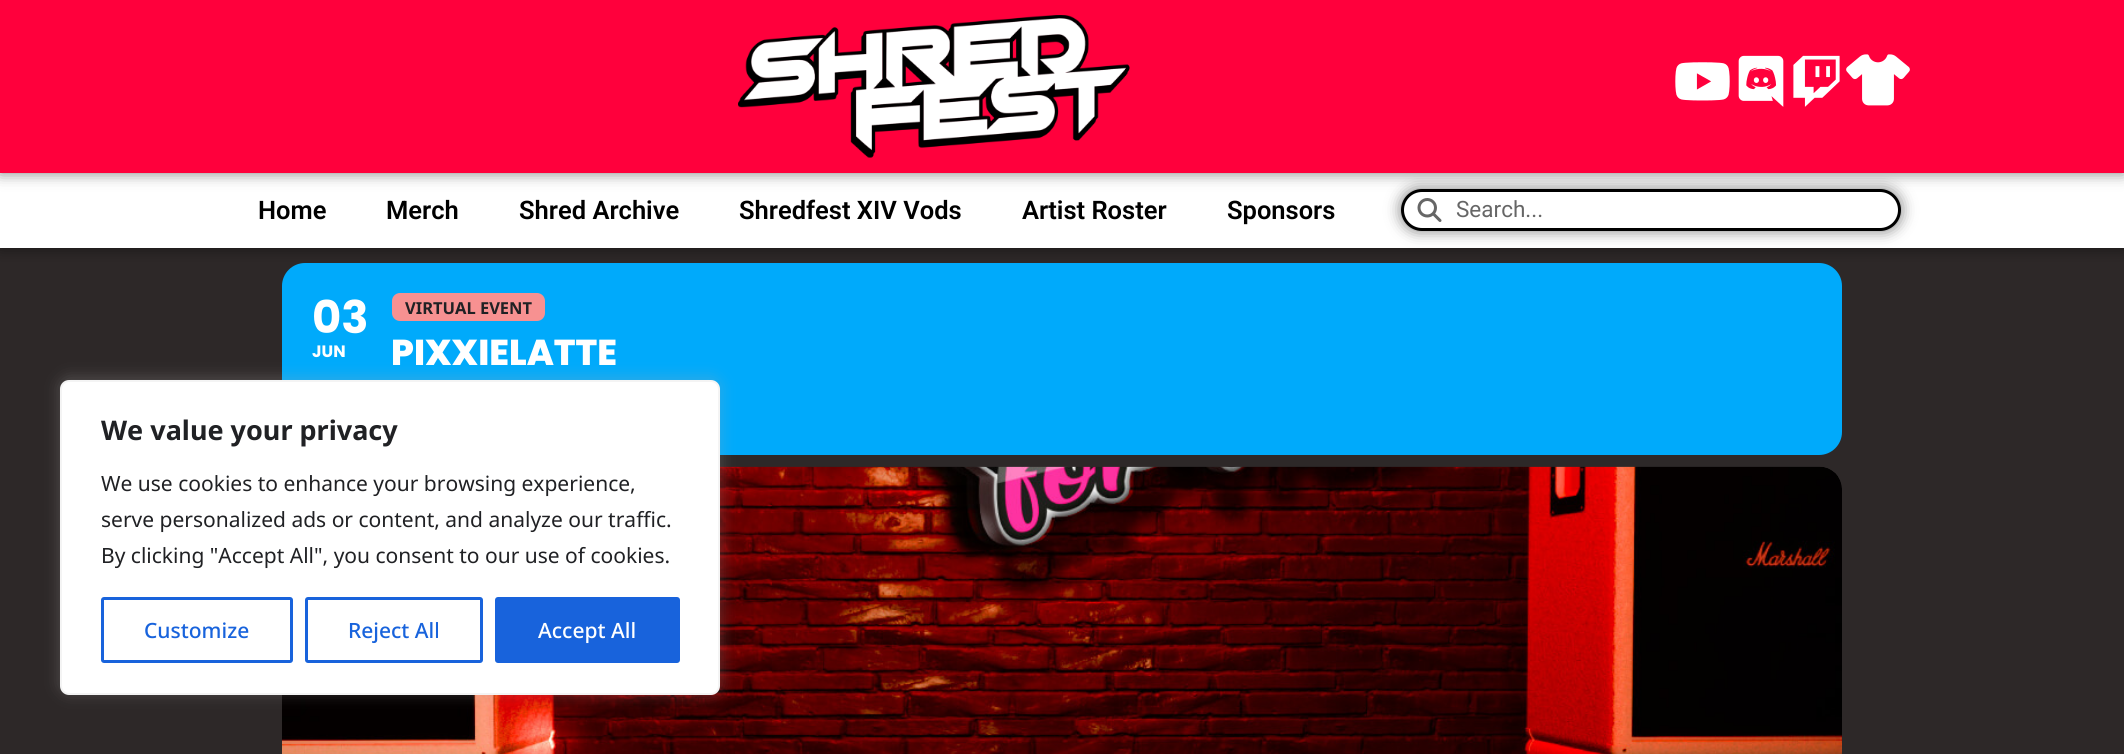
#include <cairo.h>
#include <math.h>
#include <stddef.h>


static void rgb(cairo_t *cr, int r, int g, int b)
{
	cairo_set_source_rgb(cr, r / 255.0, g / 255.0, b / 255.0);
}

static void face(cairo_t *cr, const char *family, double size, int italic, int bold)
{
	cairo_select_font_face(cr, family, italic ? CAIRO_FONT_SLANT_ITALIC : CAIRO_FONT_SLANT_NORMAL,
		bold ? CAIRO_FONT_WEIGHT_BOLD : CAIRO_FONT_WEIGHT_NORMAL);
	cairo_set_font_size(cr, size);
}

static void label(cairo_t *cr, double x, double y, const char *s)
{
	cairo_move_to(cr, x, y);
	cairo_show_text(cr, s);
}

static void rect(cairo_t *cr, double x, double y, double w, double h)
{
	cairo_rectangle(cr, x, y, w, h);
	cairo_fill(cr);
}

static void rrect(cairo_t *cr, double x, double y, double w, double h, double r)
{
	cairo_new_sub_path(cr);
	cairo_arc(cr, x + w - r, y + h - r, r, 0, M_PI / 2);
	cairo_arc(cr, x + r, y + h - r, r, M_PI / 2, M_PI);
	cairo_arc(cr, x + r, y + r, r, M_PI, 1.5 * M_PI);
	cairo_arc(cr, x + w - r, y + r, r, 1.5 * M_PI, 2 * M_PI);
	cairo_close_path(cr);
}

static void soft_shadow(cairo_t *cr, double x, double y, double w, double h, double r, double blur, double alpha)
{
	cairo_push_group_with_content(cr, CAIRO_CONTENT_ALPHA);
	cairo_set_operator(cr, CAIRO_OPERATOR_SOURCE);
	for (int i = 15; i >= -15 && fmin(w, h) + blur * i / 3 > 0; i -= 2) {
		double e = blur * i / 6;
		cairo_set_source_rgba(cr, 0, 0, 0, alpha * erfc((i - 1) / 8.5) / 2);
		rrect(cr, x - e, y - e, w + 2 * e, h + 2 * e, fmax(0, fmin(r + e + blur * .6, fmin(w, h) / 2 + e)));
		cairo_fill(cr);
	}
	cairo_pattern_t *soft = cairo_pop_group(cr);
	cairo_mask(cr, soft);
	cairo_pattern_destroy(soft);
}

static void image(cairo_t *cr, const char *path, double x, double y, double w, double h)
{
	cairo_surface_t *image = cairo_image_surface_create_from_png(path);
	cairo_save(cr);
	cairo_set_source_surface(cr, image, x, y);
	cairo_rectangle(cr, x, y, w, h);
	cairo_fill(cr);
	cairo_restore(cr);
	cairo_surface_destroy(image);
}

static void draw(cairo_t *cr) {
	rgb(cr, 45, 40, 40);
	cairo_paint(cr);
	rgb(cr, 0, 0, 0);
	soft_shadow(cr, 0, 173, 2124, 75, 0, 7.5, 0.5);
	rgb(cr, 255, 255, 255);
	rect(cr, 0, 173, 2124, 75);
	rgb(cr, 0, 0, 0);
	soft_shadow(cr, 1401, 189, 500, 42, 21, 7.5, 0.5);
	rgb(cr, 255, 255, 255);
	rrect(cr, 1402.5, 190.5, 497, 39, 19.5);
	cairo_fill_preserve(cr);
	rgb(cr, 0, 0, 0);
	cairo_set_line_width(cr, 3);
	cairo_stroke(cr);
	rgb(cr, 0, 0, 0);
	soft_shadow(cr, 0, 0, 2124, 173, 0, 7.5, 0.5);
	rgb(cr, 255, 0, 60);
	rect(cr, 0, 0, 2124, 173);
	image(cr, "image0.png", 738, 15, 392, 143);
	image(cr, "image1.png", 1675, 62, 55, 39);
	image(cr, "image2.png", 1738, 55, 46, 52);
	image(cr, "image3.png", 1793, 55, 47, 52);
	image(cr, "image4.png", 1846, 54, 64, 52);
	face(cr, "Roboto SemiBold", 25.5, 0, 0);
	rgb(cr, 0, 0, 0);
	label(cr, 258, 219, "Home");
	label(cr, 386, 219, "Merch");
	label(cr, 519, 219, "Shred Archive");
	label(cr, 739, 219, "Shredfest XIV Vods");
	label(cr, 1022, 219, "Artist Roster");
	label(cr, 1227, 219, "Sponsors");
	image(cr, "image5.png", 1417, 198, 25, 24);
	face(cr, "Roboto", 22.5, 0, 0);
	rgb(cr, 102, 102, 102);
	label(cr, 1456, 217, "Search...");
	rgb(cr, 0, 170, 251);
	rrect(cr, 282, 263, 1560, 192, 23);
	cairo_fill(cr);
	face(cr, "Poppins", 45, 0, 1);
	rgb(cr, 255, 255, 255);
	label(cr, 312, 333, "03");
	face(cr, "Poppins", 16.5, 0, 1);
	label(cr, 312, 357, "JUN");
	rgb(cr, 247, 145, 145);
	rrect(cr, 392, 293, 153, 28, 8);
	cairo_fill(cr);
	face(cr, "Noto Sans", 16.5, 0, 1);
	rgb(cr, 32, 33, 36);
	label(cr, 405, 314, "VIRTUAL EVENT");
	face(cr, "Poppins ExtraBold", 36, 0, 0);
	rgb(cr, 255, 255, 255);
	label(cr, 391, 365, "PIXXIELATTE");
	image(cr, "image6.png", 282, 466, 1560, 288);
	rgb(cr, 172, 171, 171);
	soft_shadow(cr, 60, 378, 660, 315, 9, 7.5, 0.3);
	rgb(cr, 255, 255, 255);
	rrect(cr, 61, 381, 658, 313, 8);
	cairo_fill_preserve(cr);
	rgb(cr, 244, 244, 244);
	cairo_set_line_width(cr, 2);
	cairo_stroke(cr);
	face(cr, "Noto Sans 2", 27, 0, 1);
	rgb(cr, 32, 33, 36);
	label(cr, 101, 440, "We value your privacy");
	face(cr, "Noto Sans", 21, 0, 0);
	label(cr, 101, 491, "We use cookies to enhance your browsing experience,");
	label(cr, 101, 527, "serve personalized ads or content, and analyze our traffic.");
	label(cr, 101, 563, "By clicking \"Accept All\", you consent to our use of cookies.");
	rrect(cr, 102.5, 598.5, 189, 63, 1.5);
	rgb(cr, 24, 99, 220);
	cairo_set_line_width(cr, 3);
	cairo_stroke(cr);
	face(cr, "Noto Sans Medium", 21, 0, 0);
	label(cr, 144, 638, "Customize");
	rrect(cr, 306.5, 598.5, 175, 63, 1.5);
	cairo_stroke(cr);
	label(cr, 348, 638, "Reject All");
	rrect(cr, 496.5, 598.5, 182, 63, 1.5);
	cairo_fill_preserve(cr);
	cairo_stroke(cr);
	rgb(cr, 255, 255, 255);
	label(cr, 538, 638, "Accept All");
}

int main(void) {
	cairo_surface_t *surface = cairo_image_surface_create(CAIRO_FORMAT_RGB24, 2124, 754);
	cairo_t *cr = cairo_create(surface);
	cairo_font_options_t *options = cairo_font_options_create();
	cairo_font_options_set_hint_metrics(options, CAIRO_HINT_METRICS_OFF);
	cairo_font_options_set_hint_style(options, CAIRO_HINT_STYLE_NONE);
	cairo_set_font_options(cr, options);
	cairo_set_miter_limit(cr, 4);
	draw(cr);
	cairo_surface_write_to_png(surface, "render.png");
	cairo_font_options_destroy(options);
	cairo_destroy(cr);
	cairo_surface_destroy(surface);
	return 0;
}
